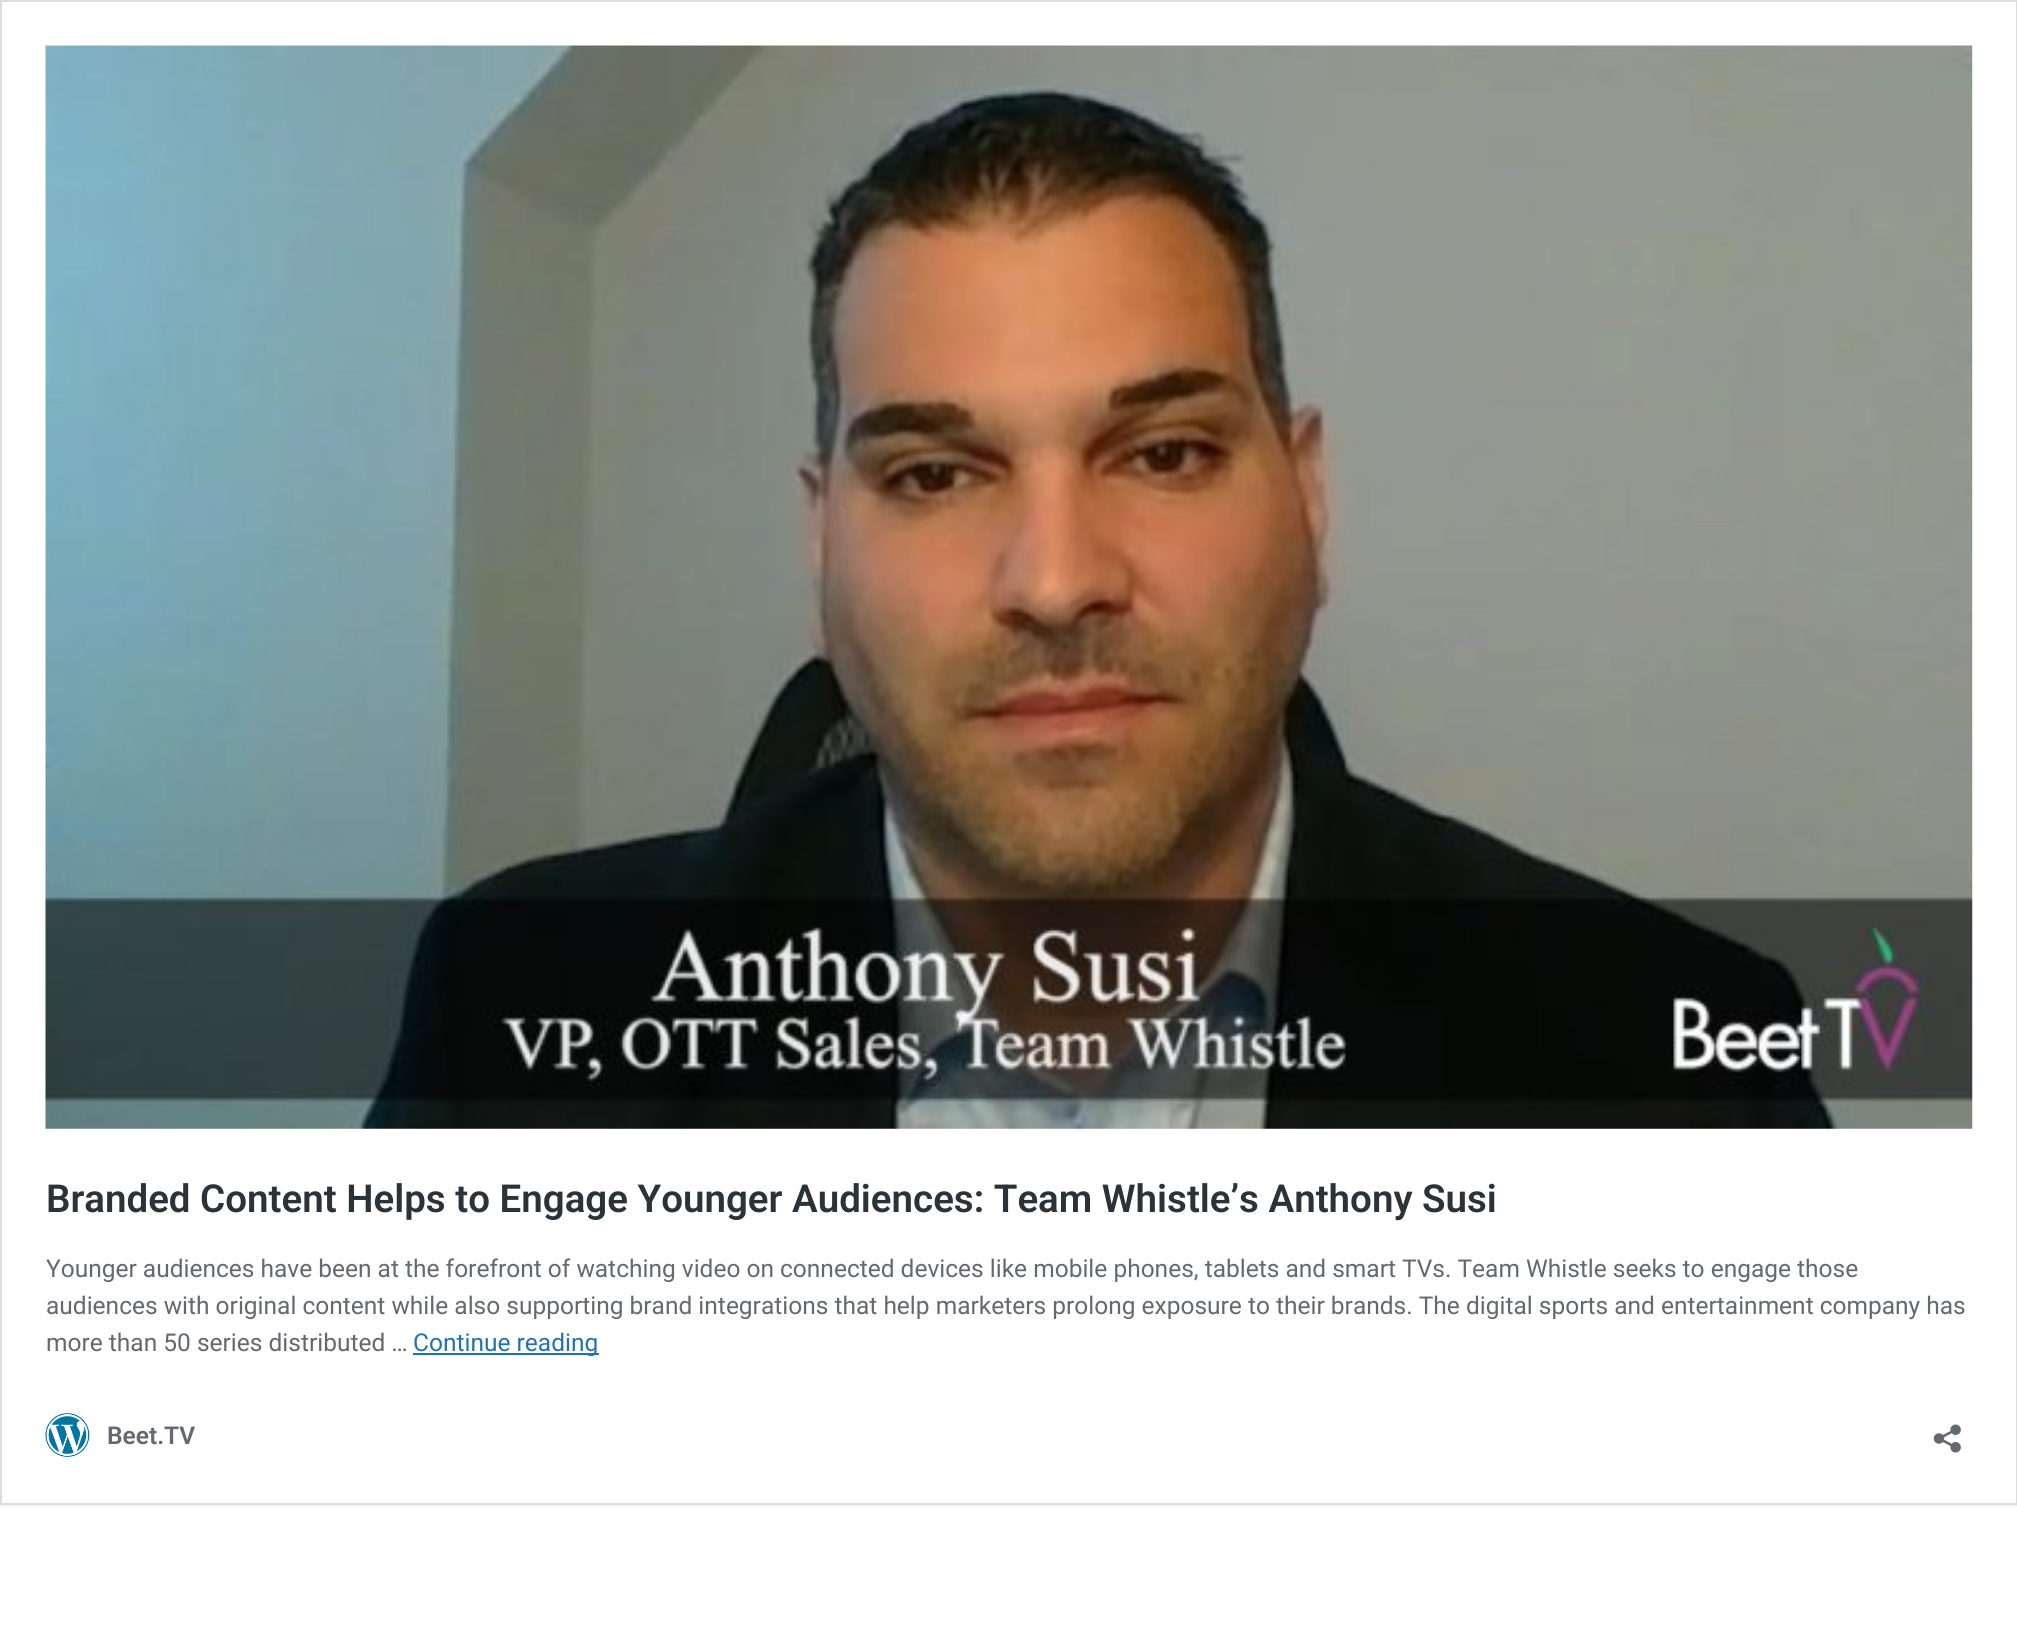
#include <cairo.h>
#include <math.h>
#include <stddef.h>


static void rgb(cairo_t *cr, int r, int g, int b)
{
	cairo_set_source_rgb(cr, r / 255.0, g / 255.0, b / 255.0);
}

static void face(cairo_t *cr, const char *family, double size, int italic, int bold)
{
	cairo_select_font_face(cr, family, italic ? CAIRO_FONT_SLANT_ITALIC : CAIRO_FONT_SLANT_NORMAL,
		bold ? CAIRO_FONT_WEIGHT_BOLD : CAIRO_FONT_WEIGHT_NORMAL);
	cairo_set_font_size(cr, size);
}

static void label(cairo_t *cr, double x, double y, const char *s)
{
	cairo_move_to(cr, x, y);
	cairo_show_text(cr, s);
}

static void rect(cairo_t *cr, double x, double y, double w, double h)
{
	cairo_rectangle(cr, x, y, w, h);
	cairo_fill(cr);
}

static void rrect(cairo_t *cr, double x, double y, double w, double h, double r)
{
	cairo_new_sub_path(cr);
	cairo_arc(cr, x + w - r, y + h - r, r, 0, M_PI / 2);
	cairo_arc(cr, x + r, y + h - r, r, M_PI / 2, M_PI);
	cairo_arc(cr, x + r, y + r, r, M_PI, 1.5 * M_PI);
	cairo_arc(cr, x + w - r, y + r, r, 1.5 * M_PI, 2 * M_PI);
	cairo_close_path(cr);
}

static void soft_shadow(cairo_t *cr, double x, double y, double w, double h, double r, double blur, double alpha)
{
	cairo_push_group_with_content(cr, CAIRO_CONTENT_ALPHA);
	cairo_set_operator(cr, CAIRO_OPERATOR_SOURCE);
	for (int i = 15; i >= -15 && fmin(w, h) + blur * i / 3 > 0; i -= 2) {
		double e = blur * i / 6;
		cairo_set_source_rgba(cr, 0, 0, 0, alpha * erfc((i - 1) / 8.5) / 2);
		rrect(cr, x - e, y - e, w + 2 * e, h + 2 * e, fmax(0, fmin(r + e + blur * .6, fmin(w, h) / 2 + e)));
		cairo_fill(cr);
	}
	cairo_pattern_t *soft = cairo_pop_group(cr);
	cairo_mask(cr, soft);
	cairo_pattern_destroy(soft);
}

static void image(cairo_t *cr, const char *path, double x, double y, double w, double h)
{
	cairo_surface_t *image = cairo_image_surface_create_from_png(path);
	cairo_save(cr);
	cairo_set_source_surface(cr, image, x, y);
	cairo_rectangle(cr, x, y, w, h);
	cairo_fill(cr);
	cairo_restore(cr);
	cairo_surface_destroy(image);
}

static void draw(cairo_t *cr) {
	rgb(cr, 255, 255, 255);
	cairo_paint(cr);
	cairo_save(cr);
	cairo_rectangle(cr, 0, 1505, 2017, 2);
	cairo_clip(cr);
	rgb(cr, 0, 0, 0);
	soft_shadow(cr, 0, 2, 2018, 1505, 0, 1, 0.05);
	cairo_restore(cr);
	cairo_rectangle(cr, 1, 1, 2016, 1503);
	rgb(cr, 220, 220, 222);
	cairo_stroke(cr);
	image(cr, "image0.png", 45, 45, 1928, 1084);
	face(cr, "Roboto SemiBold", 38.5, 0, 0);
	rgb(cr, 44, 51, 56);
	label(cr, 46, 1212, "Branded Content Helps to Engage Younger Audiences: Team Whistle’s Anthony Susi");
	face(cr, "Roboto", 24.5, 0, 0);
	rgb(cr, 100, 105, 112);
	label(cr, 46, 1277, "Younger audiences have been at the forefront of watching video on connected devices like mobile phones, tablets and smart TVs. Team Whistle seeks to engage those");
	label(cr, 46, 1314, "audiences with original content while also supporting brand integrations that help marketers prolong exposure to their brands. The digital sports and entertainment company has");
	label(cr, 46, 1351, "more than 50 series distributed …");
	rgb(cr, 34, 113, 177);
	rect(cr, 413, 1353, 186, 2);
	label(cr, 413, 1351, "Continue reading");
	image(cr, "image1.png", 45, 1413, 45, 44);
	face(cr, "Roboto SemiBold", 24.5, 0, 0);
	rgb(cr, 100, 105, 112);
	label(cr, 107, 1444, "Beet.TV");
	image(cr, "image2.png", 1933, 1424, 28, 29);
}

int main(void) {
	cairo_surface_t *surface = cairo_image_surface_create(CAIRO_FORMAT_RGB24, 2017, 1631);
	cairo_t *cr = cairo_create(surface);
	cairo_font_options_t *options = cairo_font_options_create();
	cairo_font_options_set_hint_metrics(options, CAIRO_HINT_METRICS_OFF);
	cairo_font_options_set_hint_style(options, CAIRO_HINT_STYLE_NONE);
	cairo_set_font_options(cr, options);
	cairo_set_miter_limit(cr, 4);
	draw(cr);
	cairo_surface_write_to_png(surface, "render.png");
	cairo_font_options_destroy(options);
	cairo_destroy(cr);
	cairo_surface_destroy(surface);
	return 0;
}
